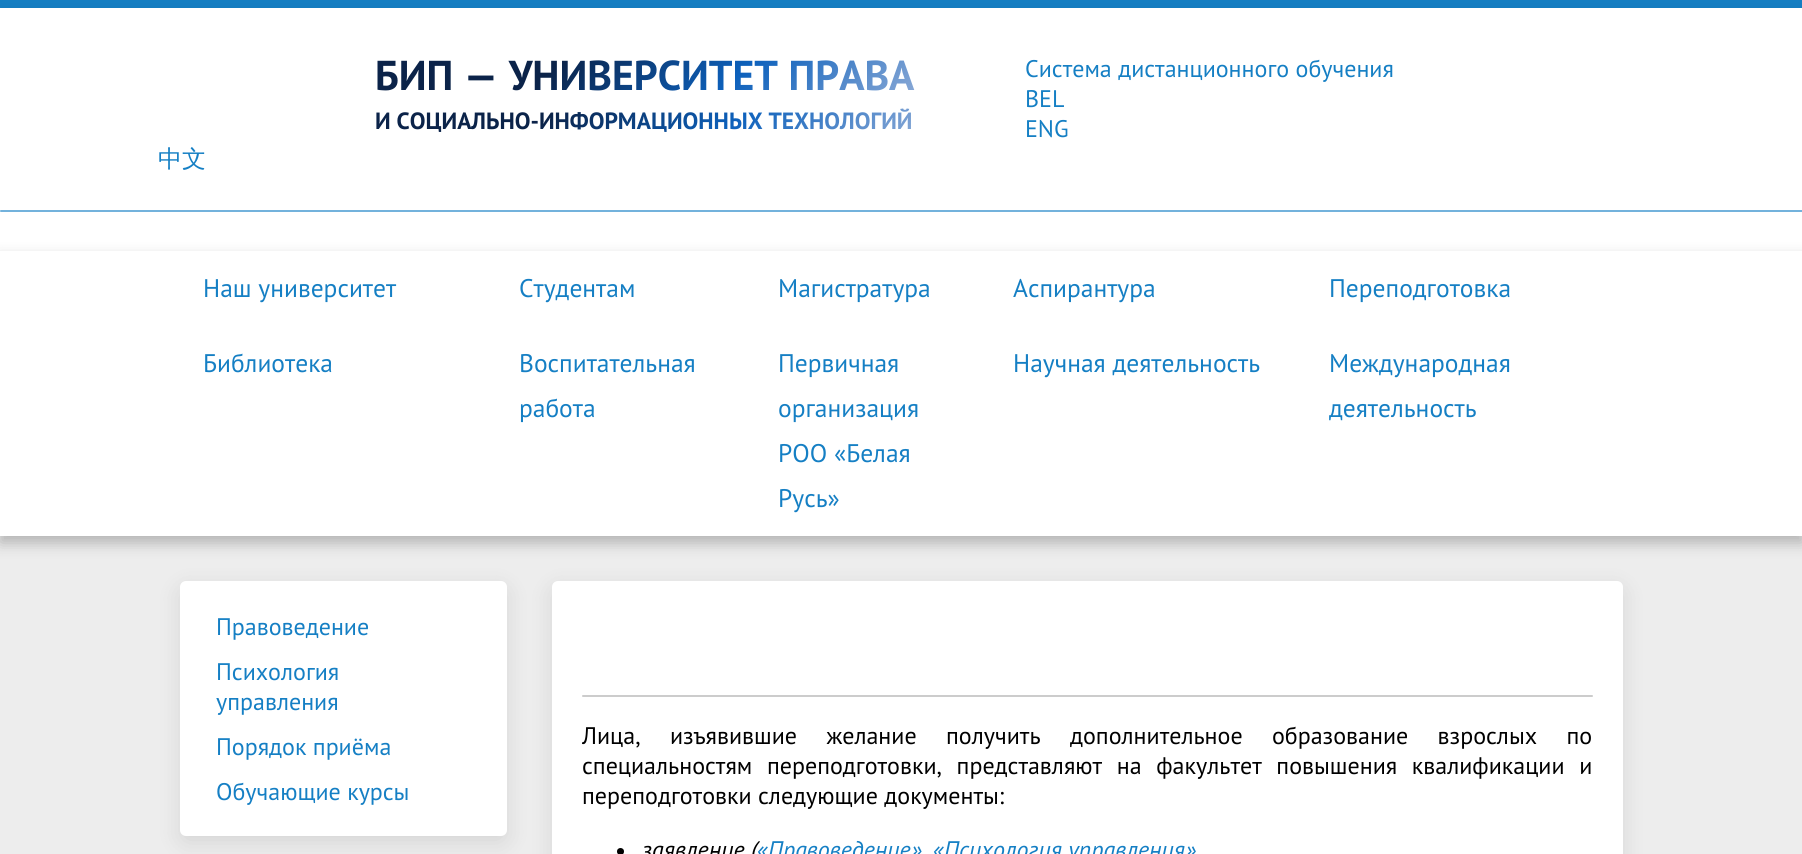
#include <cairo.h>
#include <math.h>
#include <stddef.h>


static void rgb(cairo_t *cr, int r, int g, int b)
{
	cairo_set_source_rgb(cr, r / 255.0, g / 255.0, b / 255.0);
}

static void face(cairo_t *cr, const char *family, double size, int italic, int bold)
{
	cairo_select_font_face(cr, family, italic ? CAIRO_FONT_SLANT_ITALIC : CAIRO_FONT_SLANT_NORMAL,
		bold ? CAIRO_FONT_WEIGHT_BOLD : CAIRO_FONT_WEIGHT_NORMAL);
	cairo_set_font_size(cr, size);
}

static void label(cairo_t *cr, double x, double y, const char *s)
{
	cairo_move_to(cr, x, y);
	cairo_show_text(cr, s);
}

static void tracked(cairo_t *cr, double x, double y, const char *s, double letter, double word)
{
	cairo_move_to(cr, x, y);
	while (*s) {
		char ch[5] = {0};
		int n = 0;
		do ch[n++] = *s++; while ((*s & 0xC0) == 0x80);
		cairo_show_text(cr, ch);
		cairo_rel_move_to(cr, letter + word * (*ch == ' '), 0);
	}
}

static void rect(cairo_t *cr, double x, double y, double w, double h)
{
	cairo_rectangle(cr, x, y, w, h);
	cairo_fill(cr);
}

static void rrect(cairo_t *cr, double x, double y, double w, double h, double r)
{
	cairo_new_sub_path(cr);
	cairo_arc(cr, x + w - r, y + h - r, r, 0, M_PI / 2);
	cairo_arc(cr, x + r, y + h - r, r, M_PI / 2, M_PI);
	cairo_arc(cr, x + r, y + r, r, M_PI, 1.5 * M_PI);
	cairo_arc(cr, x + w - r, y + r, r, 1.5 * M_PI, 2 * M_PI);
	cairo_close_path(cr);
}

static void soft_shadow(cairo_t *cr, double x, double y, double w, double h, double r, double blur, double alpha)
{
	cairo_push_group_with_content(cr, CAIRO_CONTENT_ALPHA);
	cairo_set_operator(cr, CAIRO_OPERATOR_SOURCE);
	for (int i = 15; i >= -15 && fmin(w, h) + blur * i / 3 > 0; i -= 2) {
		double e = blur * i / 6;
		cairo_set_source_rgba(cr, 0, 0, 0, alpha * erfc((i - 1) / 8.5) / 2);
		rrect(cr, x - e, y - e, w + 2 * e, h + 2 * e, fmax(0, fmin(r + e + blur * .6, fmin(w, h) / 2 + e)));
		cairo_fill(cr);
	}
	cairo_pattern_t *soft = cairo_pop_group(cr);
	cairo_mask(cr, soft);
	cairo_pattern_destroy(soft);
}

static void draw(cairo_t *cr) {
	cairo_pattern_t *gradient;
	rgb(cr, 237, 237, 237);
	cairo_paint(cr);
	rgb(cr, 21, 127, 196);
	rect(cr, 0, 0, 1802, 8);
	rgb(cr, 0, 0, 0);
	soft_shadow(cr, 0, 15, 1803, 243, 0, 11, 0.1);
	rgb(cr, 255, 255, 255);
	rect(cr, 0, 8, 1802, 243);
	face(cr, "PT Sans", 41.75, 0, 1);
	gradient = cairo_pattern_create_linear(499, -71, 791, 221);
	cairo_pattern_add_color_stop_rgba(gradient, 0.33, 0.043, 0.137, 0.286, 1);
	cairo_pattern_add_color_stop_rgba(gradient, 0.66, 0.051, 0.38, 0.737, 1);
	cairo_pattern_add_color_stop_rgba(gradient, 1, 0.541, 0.663, 0.839, 1);
	cairo_set_source(cr, gradient);
	cairo_pattern_destroy(gradient);
	label(cr, 375, 90, "БИП — УНИВЕРСИТЕТ ПРАВА");
	face(cr, "PT Sans", 23.5, 0, 1);
	gradient = cairo_pattern_create_linear(498, -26, 789, 266);
	cairo_pattern_add_color_stop_rgba(gradient, 0.33, 0.043, 0.137, 0.286, 1);
	cairo_pattern_add_color_stop_rgba(gradient, 0.66, 0.051, 0.38, 0.737, 1);
	cairo_pattern_add_color_stop_rgba(gradient, 1, 0.541, 0.663, 0.839, 1);
	cairo_set_source(cr, gradient);
	cairo_pattern_destroy(gradient);
	label(cr, 375, 129, "И СОЦИАЛЬНО-ИНФОРМАЦИОННЫХ ТЕХНОЛОГИЙ");
	face(cr, "PT Sans", 24, 0, 0);
	rgb(cr, 21, 127, 196);
	label(cr, 1025, 77, "Система дистанционного обучения");
	label(cr, 1025, 107, "BEL");
	label(cr, 1025, 137, "ENG");
	face(cr, "WenQuanYi Zen Hei Medium", 24, 0, 0);
	label(cr, 158, 167, "中文");
	rgb(cr, 115, 178, 220);
	rrect(cr, 0, 210, 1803, 2, 1);
	cairo_fill(cr);
	rgb(cr, 0, 0, 0);
	soft_shadow(cr, 0, 258, 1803, 285, 0, 7.5, 0.25);
	rgb(cr, 255, 255, 255);
	rect(cr, 0, 251, 1802, 285);
	face(cr, "PT Sans", 25.5, 0, 0);
	rgb(cr, 21, 127, 196);
	label(cr, 203, 297, "Наш университет");
	label(cr, 519, 297, "Студентам");
	label(cr, 778, 297, "Магистратура");
	label(cr, 1013, 297, "Аспирантура");
	label(cr, 1329, 297, "Переподготовка");
	label(cr, 203, 372, "Библиотека");
	label(cr, 519, 372, "Воспитательная");
	label(cr, 519, 417, "работа");
	label(cr, 778, 372, "Первичная");
	label(cr, 778, 417, "организация");
	label(cr, 778, 462, "РОО «Белая");
	label(cr, 778, 507, "Русь»");
	label(cr, 1013, 372, "Научная деятельность");
	label(cr, 1329, 372, "Международная");
	label(cr, 1329, 417, "деятельность");
	rgb(cr, 0, 0, 0);
	soft_shadow(cr, 180, 588, 327, 255, 6, 11, 0.1);
	rgb(cr, 255, 255, 255);
	rrect(cr, 180, 581, 327, 255, 6);
	cairo_fill(cr);
	face(cr, "PT Sans", 24, 0, 0);
	rgb(cr, 21, 127, 196);
	label(cr, 216, 635, "Правоведение");
	label(cr, 216, 680, "Психология");
	label(cr, 216, 710, "управления");
	label(cr, 216, 755, "Порядок приёма");
	label(cr, 216, 800, "Обучающие курсы");
	rgb(cr, 0, 0, 0);
	soft_shadow(cr, 552, 588, 1071, 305, 6, 11, 0.1);
	rgb(cr, 255, 255, 255);
	rrect(cr, 552, 581, 1071, 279, 6);
	cairo_fill(cr);
	rgb(cr, 204, 204, 204);
	rrect(cr, 582, 695, 1011, 2, 1);
	cairo_fill(cr);
	rgb(cr, 0, 0, 0);
	tracked(cr, 582, 744, "Лица, изъявившие желание получить дополнительное образование взрослых по", 0, 23);
	tracked(cr, 582, 774, "специальностям переподготовки, представляют на факультет повышения квалификации и", 0, 8.25);
	label(cr, 582, 804, "переподготовки следующие документы:");
	cairo_new_path(cr);
	cairo_arc(cr, 620.5, 851.5, 3.5, 0, 2 * M_PI);
	cairo_fill(cr);
	face(cr, "PT Sans", 24, 1, 0);
	label(cr, 642, 858, "заявление (");
	rgb(cr, 21, 127, 196);
	label(cr, 757, 858, "«Правоведение»");
	label(cr, 933, 858, "«Психология управления»");
}

int main(void) {
	cairo_surface_t *surface = cairo_image_surface_create(CAIRO_FORMAT_RGB24, 1802, 854);
	cairo_t *cr = cairo_create(surface);
	cairo_font_options_t *options = cairo_font_options_create();
	cairo_font_options_set_hint_metrics(options, CAIRO_HINT_METRICS_OFF);
	cairo_font_options_set_hint_style(options, CAIRO_HINT_STYLE_NONE);
	cairo_set_font_options(cr, options);
	cairo_set_miter_limit(cr, 4);
	draw(cr);
	cairo_surface_write_to_png(surface, "render.png");
	cairo_font_options_destroy(options);
	cairo_destroy(cr);
	cairo_surface_destroy(surface);
	return 0;
}
